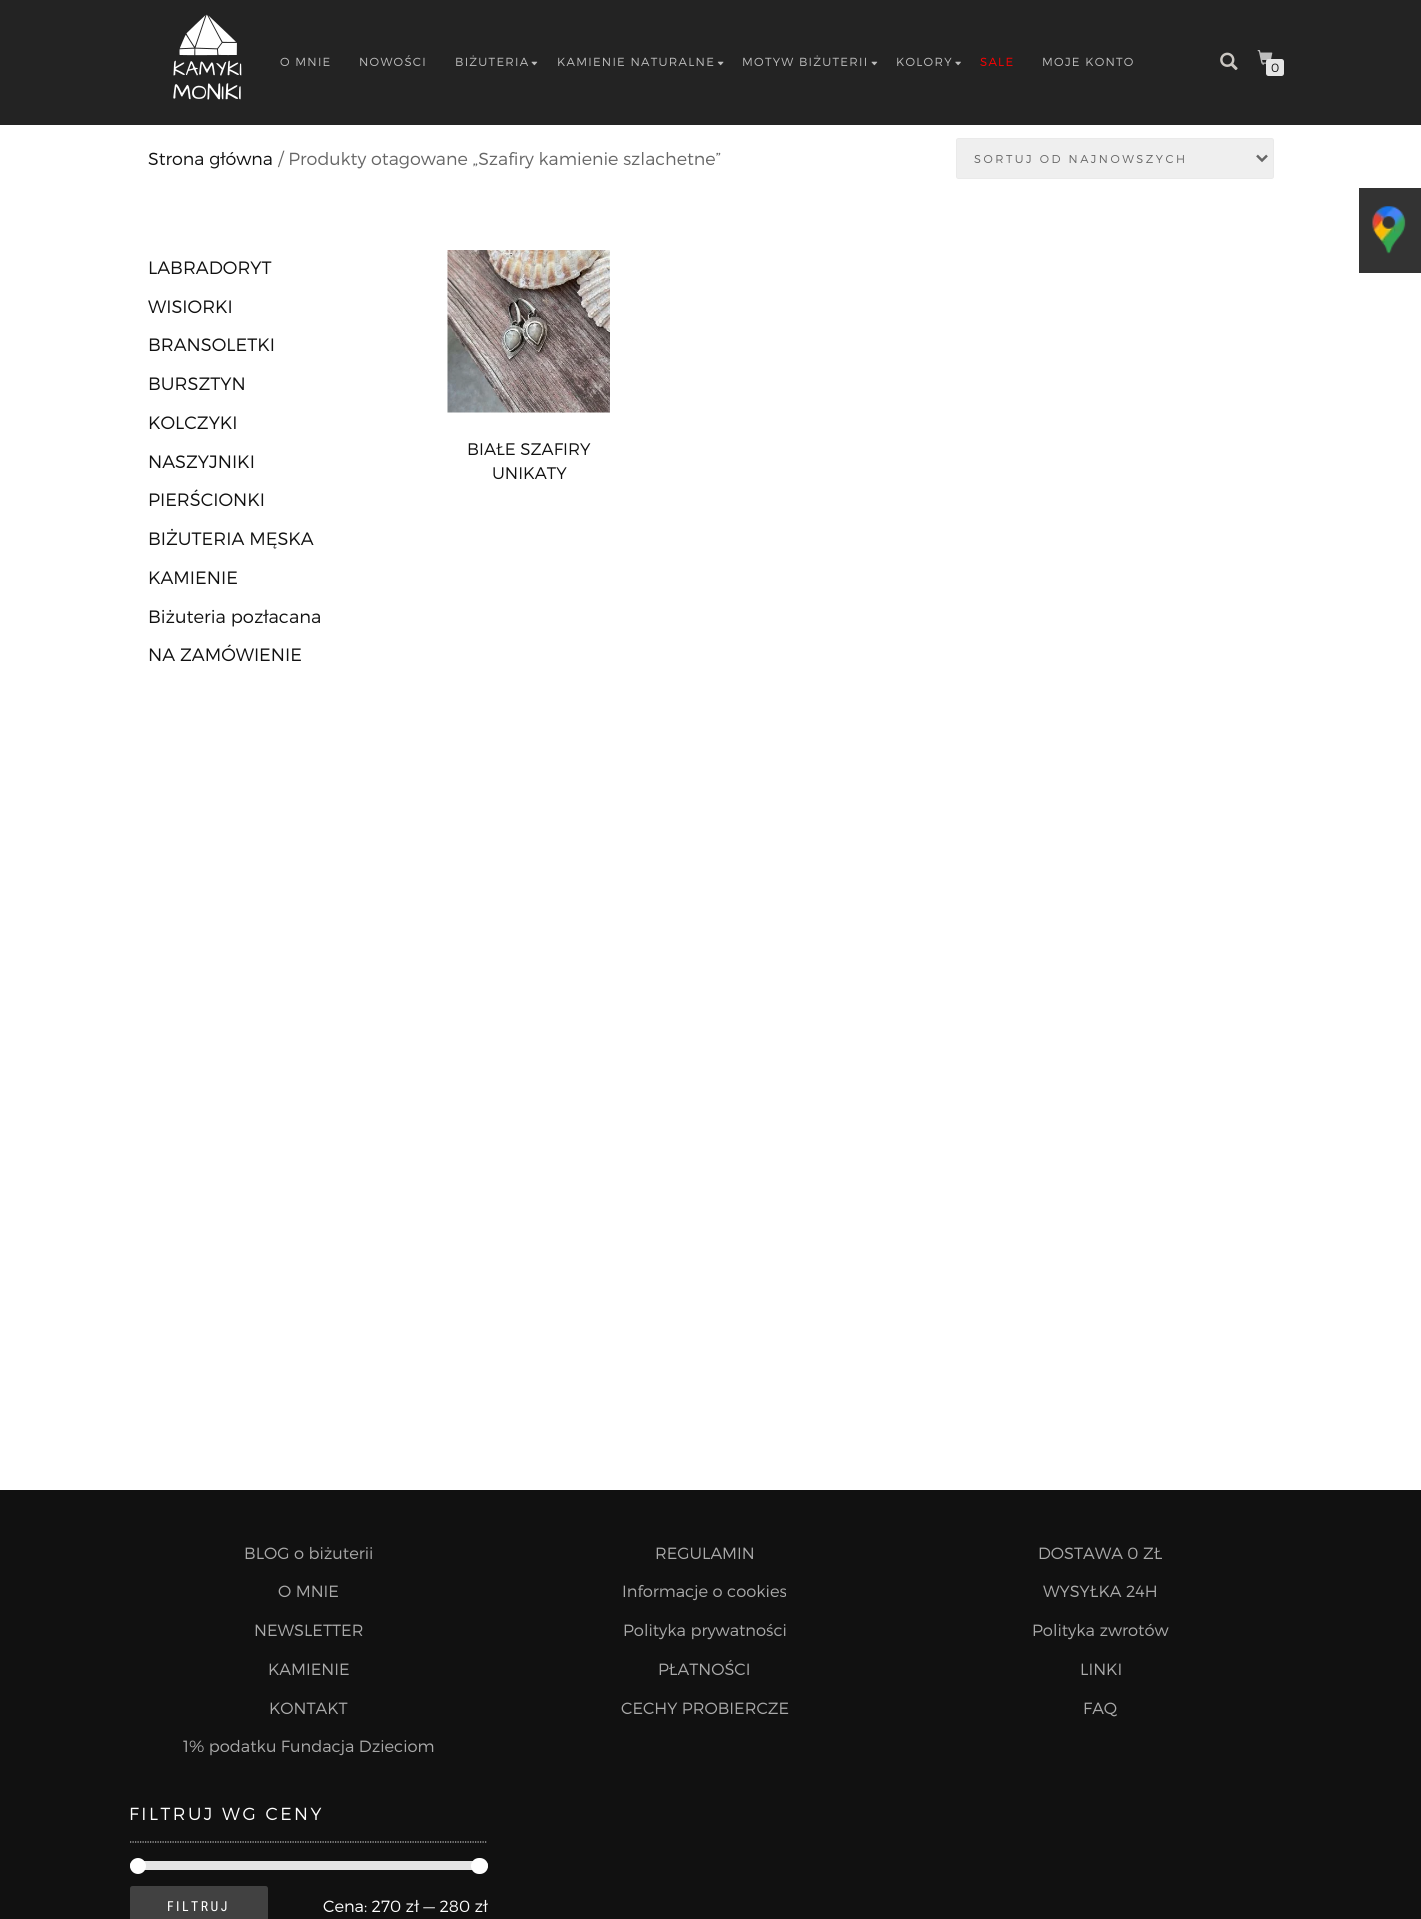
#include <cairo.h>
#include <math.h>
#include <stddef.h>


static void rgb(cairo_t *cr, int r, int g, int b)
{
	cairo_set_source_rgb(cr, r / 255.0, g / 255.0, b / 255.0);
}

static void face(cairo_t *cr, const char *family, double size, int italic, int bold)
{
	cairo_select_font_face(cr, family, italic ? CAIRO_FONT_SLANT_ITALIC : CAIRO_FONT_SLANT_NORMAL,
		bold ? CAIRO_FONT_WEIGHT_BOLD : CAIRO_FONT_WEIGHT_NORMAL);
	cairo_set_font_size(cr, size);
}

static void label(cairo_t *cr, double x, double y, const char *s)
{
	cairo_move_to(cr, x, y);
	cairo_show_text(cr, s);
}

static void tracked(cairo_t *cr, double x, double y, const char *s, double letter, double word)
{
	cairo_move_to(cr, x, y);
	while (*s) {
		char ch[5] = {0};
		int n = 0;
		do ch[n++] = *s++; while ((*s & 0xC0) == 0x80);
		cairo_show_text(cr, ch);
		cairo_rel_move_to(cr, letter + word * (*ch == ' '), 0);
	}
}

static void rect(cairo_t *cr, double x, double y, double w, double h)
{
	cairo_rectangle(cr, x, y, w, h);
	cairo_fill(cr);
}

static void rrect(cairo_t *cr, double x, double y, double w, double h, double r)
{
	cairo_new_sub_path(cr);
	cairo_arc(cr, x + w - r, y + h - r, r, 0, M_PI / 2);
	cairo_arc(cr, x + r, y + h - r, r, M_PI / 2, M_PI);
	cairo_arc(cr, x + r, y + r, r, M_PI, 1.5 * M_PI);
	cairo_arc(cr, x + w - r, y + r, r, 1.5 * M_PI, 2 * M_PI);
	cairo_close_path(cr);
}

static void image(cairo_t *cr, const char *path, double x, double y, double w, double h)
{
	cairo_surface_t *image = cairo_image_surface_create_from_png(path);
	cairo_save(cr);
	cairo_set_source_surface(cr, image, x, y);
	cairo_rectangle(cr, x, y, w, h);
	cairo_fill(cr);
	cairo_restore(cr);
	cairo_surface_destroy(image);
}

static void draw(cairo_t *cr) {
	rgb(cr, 255, 255, 255);
	cairo_paint(cr);
	rgb(cr, 35, 35, 35);
	rect(cr, 0, 0, 1421, 125);
	image(cr, "image0.png", 173, 14, 69, 86);
	face(cr, "Montserrat Light", 11.75, 0, 0);
	rgb(cr, 189, 189, 189);
	tracked(cr, 280, 66, "O MNIE", 1.25, 0);
	tracked(cr, 359, 66, "NOWOŚCI", 1.25, 0);
	tracked(cr, 455, 66, "BIŻUTERIA", 1.25, 0);
	image(cr, "image1.png", 531, 61, 7, 5);
	tracked(cr, 557, 66, "KAMIENIE NATURALNE", 1.25, 0);
	image(cr, "image2.png", 717, 61, 7, 5);
	tracked(cr, 742, 66, "MOTYW BIŻUTERII", 1.25, 0);
	image(cr, "image1.png", 871, 61, 7, 5);
	tracked(cr, 896, 66, "KOLORY", 1.25, 0);
	image(cr, "image3.png", 955, 61, 6, 5);
	rgb(cr, 255, 0, 0);
	tracked(cr, 980, 66, "SALE", 1.25, 0);
	rgb(cr, 189, 189, 189);
	tracked(cr, 1042, 66, "MOJE KONTO", 1.25, 0);
	image(cr, "image4.png", 1220, 52, 18, 19);
	image(cr, "image5.png", 1257, 50, 16, 15);
	rgb(cr, 229, 229, 229);
	rrect(cr, 1266, 59, 18, 17, 2.5);
	cairo_fill(cr);
	face(cr, "Montserrat Light", 12, 0, 0);
	rgb(cr, 17, 17, 17);
	label(cr, 1271, 72, "0");
	face(cr, "Montserrat Light", 17.5, 0, 0);
	label(cr, 148, 165, "Strona główna");
	rgb(cr, 102, 102, 102);
	label(cr, 278, 165, "/ Produkty otagowane „Szafiry kamienie szlachetne”");
	rgb(cr, 239, 239, 239);
	rrect(cr, 956.5, 138.5, 317, 40, 2);
	cairo_fill_preserve(cr);
	rgb(cr, 234, 234, 234);
	cairo_set_line_width(cr, 1);
	cairo_stroke(cr);
	cairo_new_path(cr);
	cairo_move_to(cr, 1257, 155.5);
	cairo_line_to(cr, 1262, 160.5);
	cairo_line_to(cr, 1267, 155.5);
	rgb(cr, 102, 102, 102);
	cairo_set_line_width(cr, 2.5);
	cairo_stroke(cr);
	face(cr, "Montserrat Light", 11.4, 0, 0);
	tracked(cr, 974, 163, "SORTUJ OD NAJNOWSZYCH", 2.5, 0);
	face(cr, "Montserrat Light", 17.9, 0, 0);
	rgb(cr, 17, 17, 17);
	label(cr, 148, 274, "LABRADORYT");
	label(cr, 148, 313, "WISIORKI");
	label(cr, 148, 351, "BRANSOLETKI");
	label(cr, 148, 390, "BURSZTYN");
	label(cr, 148, 429, "KOLCZYKI");
	label(cr, 148, 468, "NASZYJNIKI");
	label(cr, 148, 506, "PIERŚCIONKI");
	label(cr, 148, 545, "BIŻUTERIA MĘSKA");
	label(cr, 148, 584, "KAMIENIE");
	label(cr, 148, 623, "Biżuteria pozłacana");
	label(cr, 148, 661, "NA ZAMÓWIENIE");
	image(cr, "image6.png", 447, 250, 163, 163);
	face(cr, "Montserrat Light", 16.75, 0, 0);
	label(cr, 467, 455, "BIAŁE SZAFIRY");
	label(cr, 492, 479, "UNIKATY");
	rgb(cr, 51, 51, 51);
	rect(cr, 1359, 188, 62, 85);
	image(cr, "image7.png", 1372, 206, 34, 48);
	rgb(cr, 17, 17, 17);
	rect(cr, 0, 1490, 1421, 429);
	face(cr, "Montserrat Light", 16.25, 0, 0);
	rgb(cr, 170, 170, 170);
	label(cr, 244, 1559, "BLOG o biżuterii");
	label(cr, 278, 1597, "O MNIE");
	label(cr, 254, 1636, "NEWSLETTER");
	label(cr, 268, 1675, "KAMIENIE");
	label(cr, 269, 1714, "KONTAKT");
	label(cr, 183, 1752, "1% podatku Fundacja Dzieciom");
	label(cr, 655, 1559, "REGULAMIN");
	label(cr, 622, 1597, "Informacje o cookies");
	label(cr, 623, 1636, "Polityka prywatności");
	label(cr, 658, 1675, "PŁATNOŚCI");
	label(cr, 621, 1714, "CECHY PROBIERCZE");
	label(cr, 1038, 1559, "DOSTAWA 0 ZŁ");
	label(cr, 1043, 1597, "WYSYŁKA 24H");
	label(cr, 1032, 1636, "Polityka zwrotów");
	label(cr, 1080, 1675, "LINKI");
	label(cr, 1083, 1714, "FAQ");
	cairo_new_path(cr);
	cairo_move_to(cr, 130, 1842);
	cairo_line_to(cr, 487.5, 1842);
	rgb(cr, 194, 194, 194);
	cairo_set_line_width(cr, 1.2);
	cairo_set_dash(cr, (double[]){1.25, 1.25}, 2, 0);
	cairo_stroke(cr);
	face(cr, "Montserrat Light", 17.5, 0, 0);
	rgb(cr, 255, 255, 255);
	tracked(cr, 129, 1820, "FILTRUJ WG CENY", 2.5, 0);
	rgb(cr, 229, 229, 229);
	rrect(cr, 130, 1861, 358, 9, 4.5);
	cairo_fill(cr);
	rgb(cr, 255, 255, 255);
	cairo_arc(cr, 138, 1866, 8, 0, 2 * M_PI);
	cairo_fill(cr);
	rrect(cr, 471, 1858, 17, 16, 8);
	cairo_fill(cr);
	rgb(cr, 65, 65, 65);
	rrect(cr, 130, 1886, 138, 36, 2.5);
	cairo_fill(cr);
	face(cr, "Roboto Condensed", 13.75, 0, 0);
	rgb(cr, 255, 255, 255);
	tracked(cr, 167, 1911, "FILTRUJ", 2.5, 0);
	face(cr, "Montserrat Light", 16.25, 0, 0);
	label(cr, 323, 1912, "Cena: 270 zł — 280 zł");
}

int main(void) {
	cairo_surface_t *surface = cairo_image_surface_create(CAIRO_FORMAT_RGB24, 1421, 1919);
	cairo_t *cr = cairo_create(surface);
	cairo_font_options_t *options = cairo_font_options_create();
	cairo_font_options_set_hint_metrics(options, CAIRO_HINT_METRICS_OFF);
	cairo_font_options_set_hint_style(options, CAIRO_HINT_STYLE_NONE);
	cairo_set_font_options(cr, options);
	cairo_set_miter_limit(cr, 4);
	draw(cr);
	cairo_surface_write_to_png(surface, "render.png");
	cairo_font_options_destroy(options);
	cairo_destroy(cr);
	cairo_surface_destroy(surface);
	return 0;
}
